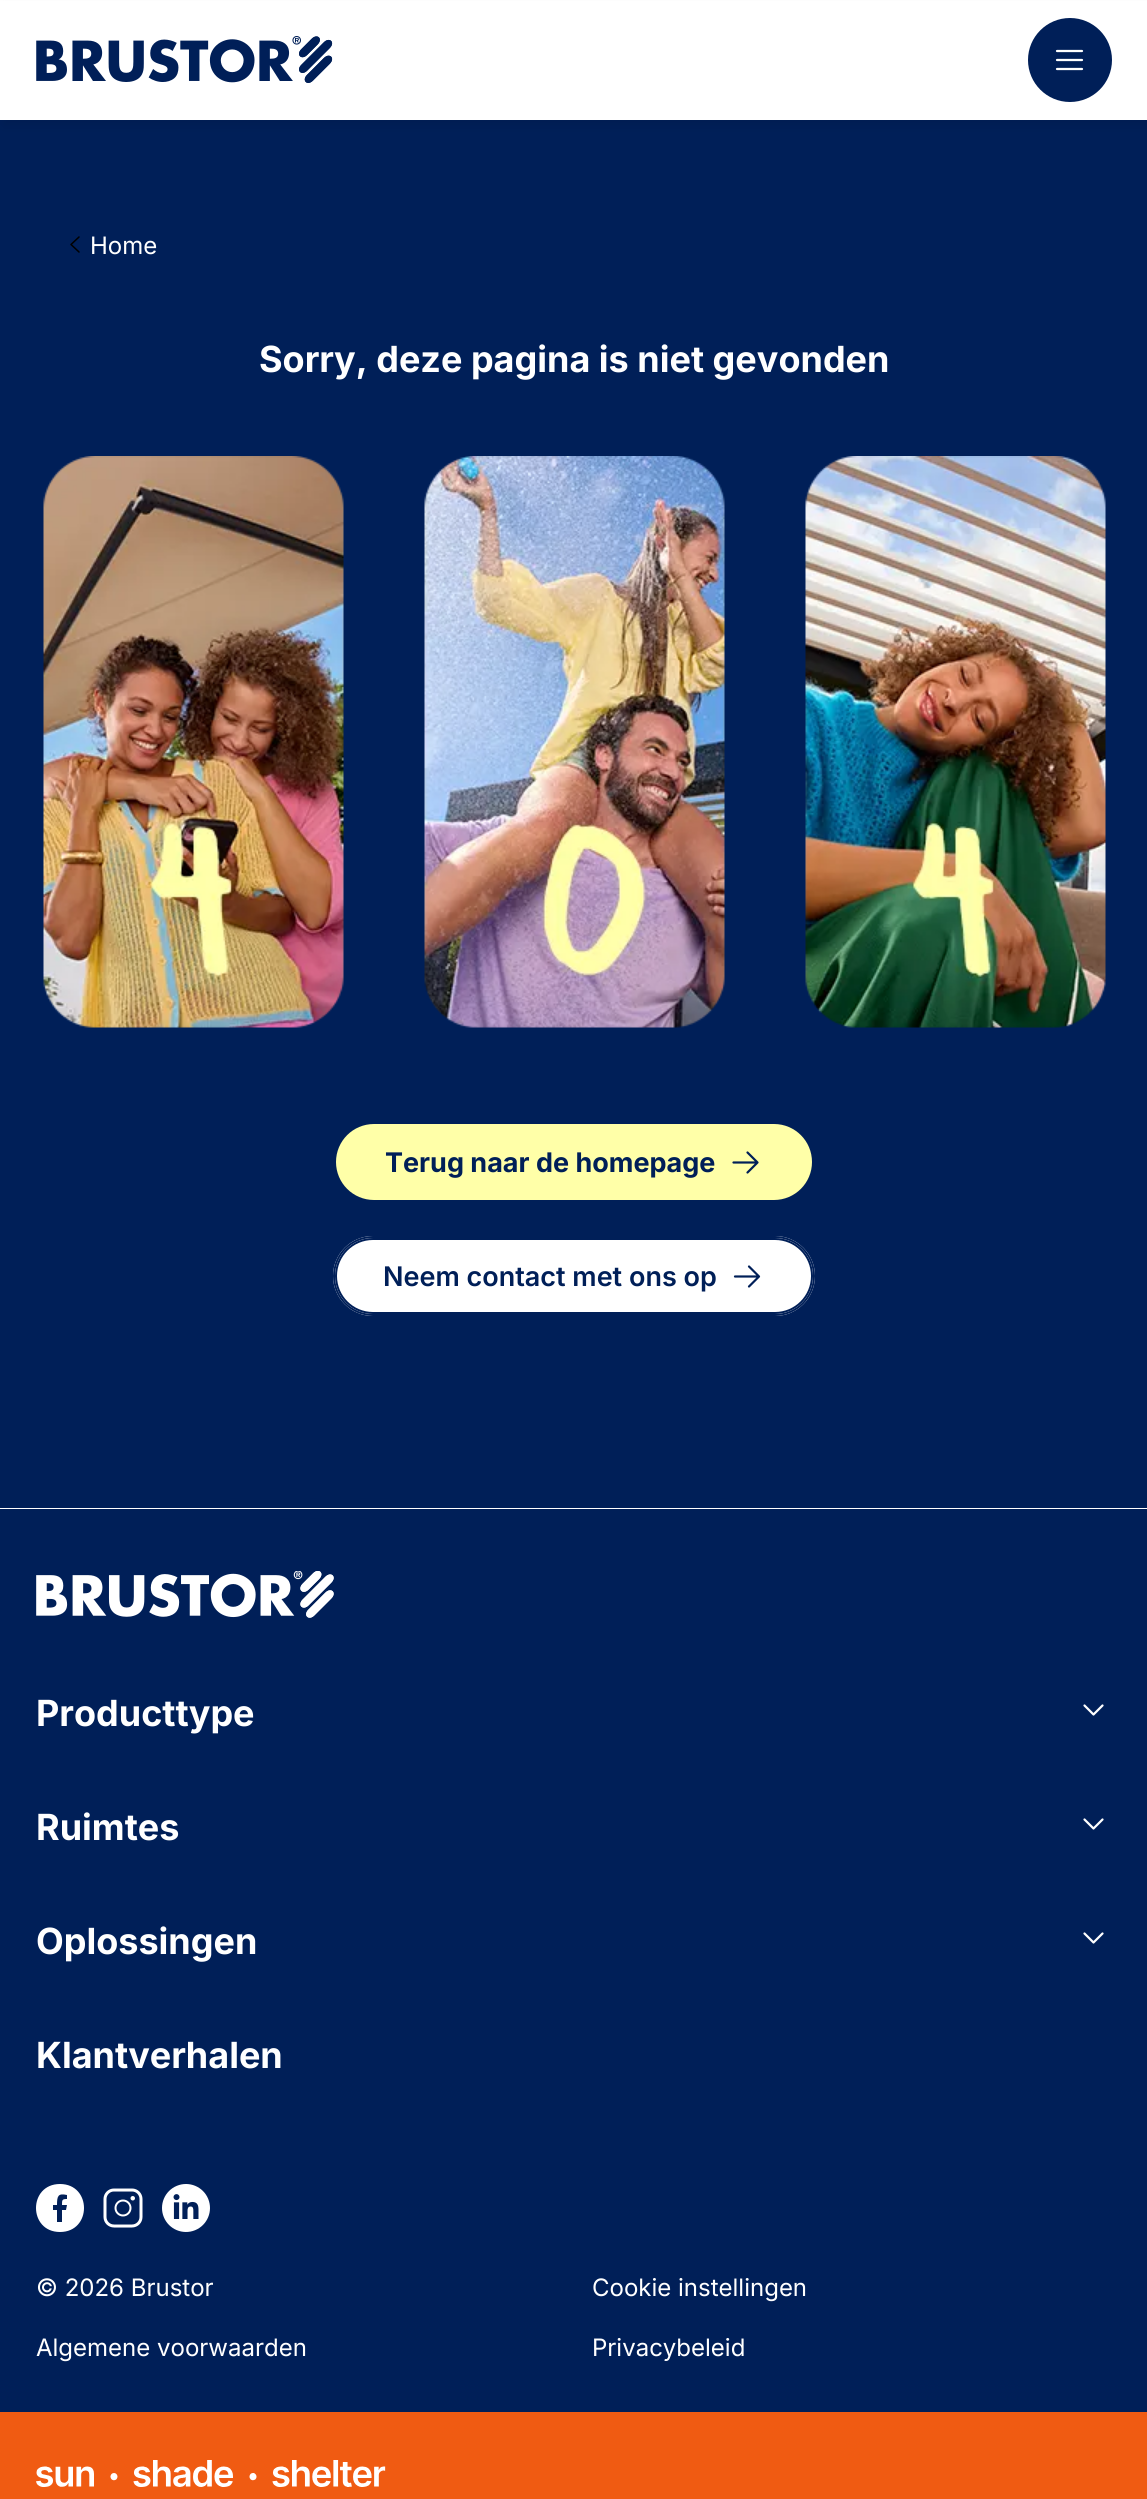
#include <cairo.h>
#include <math.h>
#include <stddef.h>


static void rgb(cairo_t *cr, int r, int g, int b)
{
	cairo_set_source_rgb(cr, r / 255.0, g / 255.0, b / 255.0);
}

static void face(cairo_t *cr, const char *family, double size, int italic, int bold)
{
	cairo_select_font_face(cr, family, italic ? CAIRO_FONT_SLANT_ITALIC : CAIRO_FONT_SLANT_NORMAL,
		bold ? CAIRO_FONT_WEIGHT_BOLD : CAIRO_FONT_WEIGHT_NORMAL);
	cairo_set_font_size(cr, size);
}

static void label(cairo_t *cr, double x, double y, const char *s)
{
	cairo_move_to(cr, x, y);
	cairo_show_text(cr, s);
}

static void rect(cairo_t *cr, double x, double y, double w, double h)
{
	cairo_rectangle(cr, x, y, w, h);
	cairo_fill(cr);
}

static void rrect(cairo_t *cr, double x, double y, double w, double h, double r)
{
	cairo_new_sub_path(cr);
	cairo_arc(cr, x + w - r, y + h - r, r, 0, M_PI / 2);
	cairo_arc(cr, x + r, y + h - r, r, M_PI / 2, M_PI);
	cairo_arc(cr, x + r, y + r, r, M_PI, 1.5 * M_PI);
	cairo_arc(cr, x + w - r, y + r, r, 1.5 * M_PI, 2 * M_PI);
	cairo_close_path(cr);
}

static void soft_shadow(cairo_t *cr, double x, double y, double w, double h, double r, double blur, double alpha)
{
	cairo_push_group_with_content(cr, CAIRO_CONTENT_ALPHA);
	cairo_set_operator(cr, CAIRO_OPERATOR_SOURCE);
	for (int i = 15; i >= -15 && fmin(w, h) + blur * i / 3 > 0; i -= 2) {
		double e = blur * i / 6;
		cairo_set_source_rgba(cr, 0, 0, 0, alpha * erfc((i - 1) / 8.5) / 2);
		rrect(cr, x - e, y - e, w + 2 * e, h + 2 * e, fmax(0, fmin(r + e + blur * .6, fmin(w, h) / 2 + e)));
		cairo_fill(cr);
	}
	cairo_pattern_t *soft = cairo_pop_group(cr);
	cairo_mask(cr, soft);
	cairo_pattern_destroy(soft);
}

static void image(cairo_t *cr, const char *path, double x, double y, double w, double h)
{
	cairo_surface_t *image = cairo_image_surface_create_from_png(path);
	cairo_save(cr);
	cairo_set_source_surface(cr, image, x, y);
	cairo_rectangle(cr, x, y, w, h);
	cairo_fill(cr);
	cairo_restore(cr);
	cairo_surface_destroy(image);
}

static void draw(cairo_t *cr) {
	rgb(cr, 255, 255, 255);
	cairo_paint(cr);
	rgb(cr, 0, 31, 88);
	rect(cr, 0, 120, 1147, 1388);
	rgb(cr, 0, 0, 0);
	soft_shadow(cr, 3, 6, 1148, 120, 0, 5, 0.07);
	rgb(cr, 255, 255, 255);
	rect(cr, 0, 1, 1147, 119);
	image(cr, "image0.png", 36, 36, 297, 47);
	rgb(cr, 0, 31, 88);
	cairo_arc(cr, 1070, 60, 42, 0, 2 * M_PI);
	cairo_fill(cr);
	cairo_new_path(cr);
	cairo_move_to(cr, 1057, 60);
	cairo_line_to(cr, 1082, 60);
	cairo_move_to(cr, 1057, 51);
	cairo_line_to(cr, 1082, 51);
	cairo_move_to(cr, 1057, 69);
	cairo_line_to(cr, 1082, 69);
	rgb(cr, 255, 255, 255);
	cairo_set_line_width(cr, 2.2);
	cairo_set_line_cap(cr, CAIRO_LINE_CAP_ROUND);
	cairo_set_line_join(cr, CAIRO_LINE_JOIN_ROUND);
	cairo_stroke(cr);
	cairo_new_path(cr);
	cairo_move_to(cr, 79, 252);
	cairo_line_to(cr, 71, 244.5);
	cairo_line_to(cr, 79, 237);
	rgb(cr, 0, 0, 0);
	cairo_set_line_width(cr, 1.5);
	cairo_stroke(cr);
	face(cr, "Inter", 24, 0, 0);
	rgb(cr, 255, 255, 255);
	label(cr, 90, 254, "Home");
	face(cr, "Inter", 36, 0, 1);
	label(cr, 259, 372, "Sorry, deze pagina is niet gevonden");
	image(cr, "image1.png", 43, 456, 1063, 572);
	rgb(cr, 255, 255, 168);
	rrect(cr, 336, 1124, 476, 76, 38);
	cairo_fill(cr);
	face(cr, "Inter", 27, 0, 1);
	rgb(cr, 0, 31, 88);
	label(cr, 385, 1172, "Terug naar de homepage");
	cairo_new_path(cr);
	cairo_move_to(cr, 733.5, 1162.5);
	cairo_line_to(cr, 757.5, 1162.5);
	cairo_move_to(cr, 747.5, 1152.5);
	cairo_line_to(cr, 757.5, 1162.5);
	cairo_line_to(cr, 747.5, 1172.5);
	cairo_set_line_width(cr, 2.2);
	cairo_stroke(cr);
	rgb(cr, 255, 255, 255);
	rrect(cr, 333, 1236, 482, 80, 40);
	cairo_fill(cr);
	rrect(cr, 336, 1239, 476, 74, 37);
	rgb(cr, 0, 31, 88);
	cairo_set_line_width(cr, 2);
	cairo_set_line_cap(cr, CAIRO_LINE_CAP_BUTT);
	cairo_set_line_join(cr, CAIRO_LINE_JOIN_MITER);
	cairo_stroke(cr);
	rrect(cr, 334, 1237, 480, 78, 39);
	cairo_stroke(cr);
	face(cr, "Inter SemiBold", 27, 0, 0);
	label(cr, 383, 1286, "Neem contact met ons op");
	cairo_new_path(cr);
	cairo_move_to(cr, 735, 1276.5);
	cairo_line_to(cr, 759, 1276.5);
	cairo_move_to(cr, 749, 1266.5);
	cairo_line_to(cr, 759, 1276.5);
	cairo_line_to(cr, 749, 1286.5);
	cairo_set_line_width(cr, 2.2);
	cairo_set_line_cap(cr, CAIRO_LINE_CAP_ROUND);
	cairo_set_line_join(cr, CAIRO_LINE_JOIN_ROUND);
	cairo_stroke(cr);
	rect(cr, 0, 1509, 1147, 903);
	image(cr, "image2.png", 36, 1571, 298, 47);
	face(cr, "Inter", 36, 0, 1);
	rgb(cr, 255, 255, 255);
	label(cr, 36, 1726, "Producttype");
	cairo_new_path(cr);
	cairo_move_to(cr, 1102.5, 1705.5);
	cairo_line_to(cr, 1093.5, 1714.5);
	cairo_line_to(cr, 1084.5, 1705.5);
	cairo_stroke(cr);
	label(cr, 36, 1840, "Ruimtes");
	cairo_new_path(cr);
	cairo_move_to(cr, 1102.5, 1819.5);
	cairo_line_to(cr, 1093.5, 1828.5);
	cairo_line_to(cr, 1084.5, 1819.5);
	cairo_stroke(cr);
	label(cr, 36, 1954, "Oplossingen");
	cairo_new_path(cr);
	cairo_move_to(cr, 1102.5, 1933.5);
	cairo_line_to(cr, 1093.5, 1942.5);
	cairo_line_to(cr, 1084.5, 1933.5);
	cairo_stroke(cr);
	label(cr, 36, 2068, "Klantverhalen");
	cairo_new_path(cr);
	cairo_move_to(cr, 60, 2184);
	cairo_curve_to(cr, 28, 2184, 28, 2232, 60, 2232);
	cairo_curve_to(cr, 92, 2232, 92, 2184, 60, 2184);
	cairo_close_path(cr);
	cairo_move_to(cr, 67, 2199);
	cairo_curve_to(cr, 62, 2199, 62, 2200, 62, 2205);
	cairo_line_to(cr, 67, 2205);
	cairo_line_to(cr, 66, 2210);
	cairo_line_to(cr, 62, 2210);
	cairo_line_to(cr, 62, 2222);
	cairo_line_to(cr, 57, 2222);
	cairo_line_to(cr, 57, 2210);
	cairo_line_to(cr, 53, 2210);
	cairo_line_to(cr, 53, 2205);
	cairo_line_to(cr, 57, 2205);
	cairo_curve_to(cr, 57, 2196, 58, 2193, 67, 2195);
	cairo_close_path(cr);
	cairo_fill(cr);
	image(cr, "image3.png", 103, 2188, 40, 40);
	image(cr, "image4.png", 162, 2184, 48, 48);
	face(cr, "Inter", 24, 0, 0);
	label(cr, 36, 2296, "© 2026 Brustor");
	label(cr, 592, 2296, "Cookie instellingen");
	label(cr, 36, 2356, "Algemene voorwaarden");
	label(cr, 592, 2356, "Privacybeleid");
	rgb(cr, 240, 91, 18);
	rect(cr, 0, 2412, 1147, 87);
	image(cr, "image5.png", 36, 2460, 350, 27);
}

int main(void) {
	cairo_surface_t *surface = cairo_image_surface_create(CAIRO_FORMAT_RGB24, 1147, 2499);
	cairo_t *cr = cairo_create(surface);
	cairo_font_options_t *options = cairo_font_options_create();
	cairo_font_options_set_hint_metrics(options, CAIRO_HINT_METRICS_OFF);
	cairo_font_options_set_hint_style(options, CAIRO_HINT_STYLE_NONE);
	cairo_set_font_options(cr, options);
	cairo_set_miter_limit(cr, 4);
	draw(cr);
	cairo_surface_write_to_png(surface, "render.png");
	cairo_font_options_destroy(options);
	cairo_destroy(cr);
	cairo_surface_destroy(surface);
	return 0;
}
